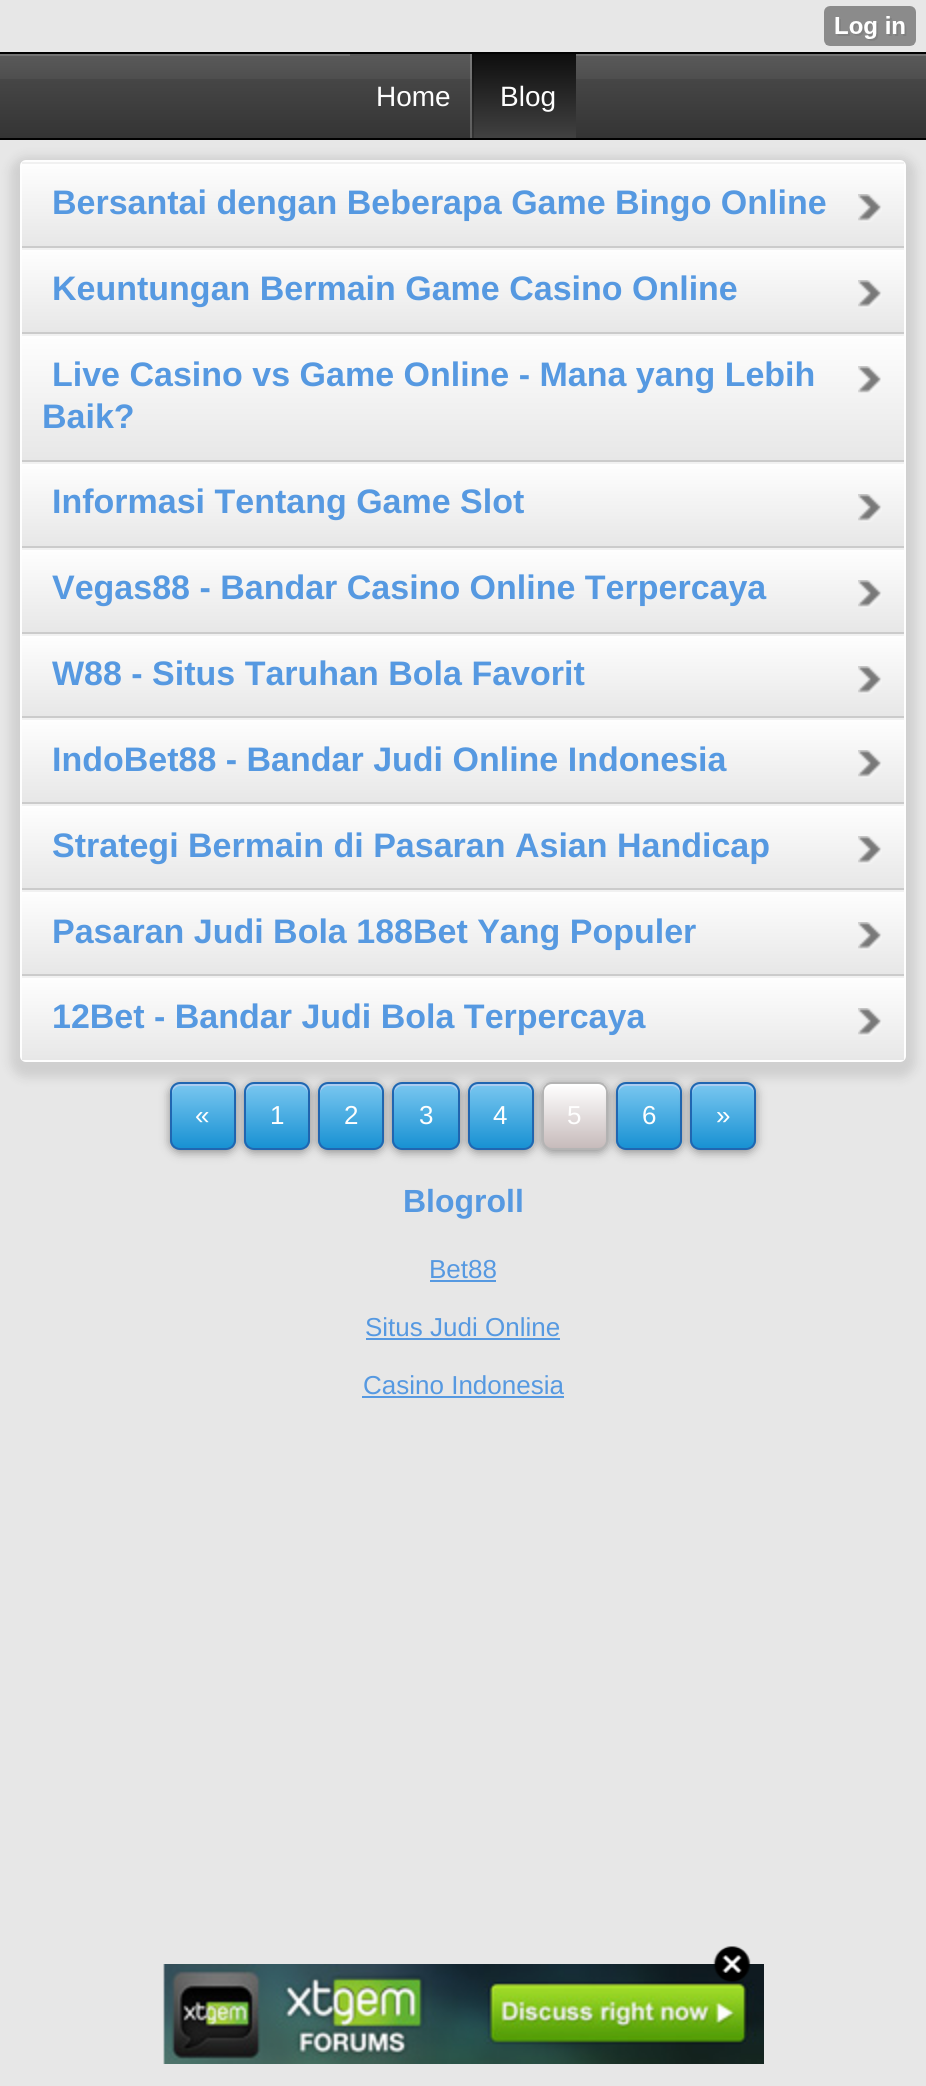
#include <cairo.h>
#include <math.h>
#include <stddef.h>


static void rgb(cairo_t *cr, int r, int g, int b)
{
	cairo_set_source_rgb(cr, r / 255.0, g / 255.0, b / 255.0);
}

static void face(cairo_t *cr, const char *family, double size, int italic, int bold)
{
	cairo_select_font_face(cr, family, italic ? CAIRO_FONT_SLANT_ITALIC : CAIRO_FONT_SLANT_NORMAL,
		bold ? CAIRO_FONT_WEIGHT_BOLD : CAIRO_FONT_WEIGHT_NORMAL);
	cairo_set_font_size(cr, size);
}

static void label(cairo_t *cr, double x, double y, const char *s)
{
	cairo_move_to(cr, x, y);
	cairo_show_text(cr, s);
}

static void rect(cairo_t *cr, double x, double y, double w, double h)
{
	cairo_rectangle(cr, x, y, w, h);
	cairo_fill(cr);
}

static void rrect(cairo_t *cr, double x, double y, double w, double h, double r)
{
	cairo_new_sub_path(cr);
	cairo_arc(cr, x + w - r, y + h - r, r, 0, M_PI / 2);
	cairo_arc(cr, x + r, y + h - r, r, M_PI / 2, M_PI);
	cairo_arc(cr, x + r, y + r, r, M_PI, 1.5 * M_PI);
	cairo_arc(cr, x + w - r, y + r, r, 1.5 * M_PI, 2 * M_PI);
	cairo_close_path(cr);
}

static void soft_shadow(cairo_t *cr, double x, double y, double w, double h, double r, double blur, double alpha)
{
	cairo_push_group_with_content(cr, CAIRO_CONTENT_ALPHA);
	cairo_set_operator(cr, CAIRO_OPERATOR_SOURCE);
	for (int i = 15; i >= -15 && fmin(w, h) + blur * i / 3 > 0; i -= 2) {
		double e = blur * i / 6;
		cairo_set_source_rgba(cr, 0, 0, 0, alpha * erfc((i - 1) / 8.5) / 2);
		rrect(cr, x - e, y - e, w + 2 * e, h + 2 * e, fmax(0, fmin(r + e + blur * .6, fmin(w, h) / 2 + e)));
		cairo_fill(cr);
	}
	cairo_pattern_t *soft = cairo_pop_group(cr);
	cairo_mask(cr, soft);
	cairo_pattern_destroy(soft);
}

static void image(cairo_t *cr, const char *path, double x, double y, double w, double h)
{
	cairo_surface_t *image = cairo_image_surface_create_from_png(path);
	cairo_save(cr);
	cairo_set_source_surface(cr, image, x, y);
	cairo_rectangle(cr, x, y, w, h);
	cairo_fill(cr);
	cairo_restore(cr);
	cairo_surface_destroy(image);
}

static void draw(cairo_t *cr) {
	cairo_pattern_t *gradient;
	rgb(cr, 231, 231, 231);
	cairo_paint(cr);
	image(cr, "image0.png", 824, 6, 92, 40);
	gradient = cairo_pattern_create_linear(463, 54, 463, 138);
	cairo_pattern_add_color_stop_rgba(gradient, 0, 0.353, 0.353, 0.353, 1);
	cairo_pattern_add_color_stop_rgba(gradient, 0.3, 0.306, 0.306, 0.306, 1);
	cairo_pattern_add_color_stop_rgba(gradient, 0.3, 0.275, 0.275, 0.275, 1);
	cairo_pattern_add_color_stop_rgba(gradient, 1, 0.204, 0.204, 0.204, 1);
	cairo_set_source(cr, gradient);
	cairo_pattern_destroy(gradient);
	rect(cr, 0, 56, 926, 82);
	rgb(cr, 114, 114, 114);
	rect(cr, 0, 54, 926, 2);
	rgb(cr, 1, 1, 1);
	rect(cr, 0, 52, 926, 2);
	rect(cr, 0, 138, 926, 2);
	gradient = cairo_pattern_create_linear(410, 54, 410, 138);
	cairo_pattern_add_color_stop_rgba(gradient, 0, 0.353, 0.353, 0.353, 1);
	cairo_pattern_add_color_stop_rgba(gradient, 0.3, 0.306, 0.306, 0.306, 1);
	cairo_pattern_add_color_stop_rgba(gradient, 0.3, 0.275, 0.275, 0.275, 1);
	cairo_pattern_add_color_stop_rgba(gradient, 1, 0.204, 0.204, 0.204, 1);
	cairo_set_source(cr, gradient);
	cairo_pattern_destroy(gradient);
	rect(cr, 350, 54, 120, 2);
	gradient = cairo_pattern_create_linear(410, 54, 410, 138);
	cairo_pattern_add_color_stop_rgba(gradient, 0, 0.482, 0.482, 0.482, 1);
	cairo_pattern_add_color_stop_rgba(gradient, 0.3, 0.443, 0.443, 0.443, 1);
	cairo_pattern_add_color_stop_rgba(gradient, 0.3, 0.42, 0.42, 0.42, 1);
	cairo_pattern_add_color_stop_rgba(gradient, 1, 0.365, 0.365, 0.365, 1);
	cairo_set_source(cr, gradient);
	cairo_pattern_destroy(gradient);
	rect(cr, 470, 54, 2, 84);
	face(cr, "Liberation Sans", 28, 0, 0);
	rgb(cr, 254, 254, 254);
	label(cr, 376, 106, "Home");
	gradient = cairo_pattern_create_linear(525, 54, 525, 138);
	cairo_pattern_add_color_stop_rgba(gradient, 0, 0.055, 0.055, 0.055, 1);
	cairo_pattern_add_color_stop_rgba(gradient, 1, 0.255, 0.255, 0.255, 1);
	cairo_set_source(cr, gradient);
	cairo_pattern_destroy(gradient);
	rect(cr, 474, 54, 102, 84);
	gradient = cairo_pattern_create_linear(525, 54, 525, 138);
	cairo_pattern_add_color_stop_rgba(gradient, 0, 0.043, 0.043, 0.043, 1);
	cairo_pattern_add_color_stop_rgba(gradient, 1, 0.204, 0.204, 0.204, 1);
	cairo_set_source(cr, gradient);
	cairo_pattern_destroy(gradient);
	rect(cr, 472, 54, 2, 84);
	rgb(cr, 254, 254, 254);
	label(cr, 500, 106, "Blog");
	rgb(cr, 0, 0, 0);
	soft_shadow(cr, 10, 156, 906, 922, 16, 5, 0.1);
	rrect(cr, 21, 161, 884, 900, 5);
	rgb(cr, 254, 254, 254);
	cairo_stroke(cr);
	gradient = cairo_pattern_create_linear(463, 164, 463, 246);
	cairo_pattern_add_color_stop_rgba(gradient, 0, 0.996, 0.996, 0.996, 1);
	cairo_pattern_add_color_stop_rgba(gradient, 1, 0.906, 0.906, 0.906, 1);
	cairo_set_source(cr, gradient);
	cairo_pattern_destroy(gradient);
	rect(cr, 22, 164, 882, 82);
	rgb(cr, 241, 241, 241);
	rect(cr, 22, 162, 882, 2);
	rgb(cr, 203, 203, 203);
	rect(cr, 22, 246, 882, 2);
	face(cr, "Liberation Sans", 34, 0, 1);
	rgb(cr, 86, 153, 225);
	label(cr, 52, 214, "Bersantai dengan Beberapa Game Bingo Online");
	image(cr, "image1.png", 858, 194, 24, 28);
	gradient = cairo_pattern_create_linear(463, 250, 463, 332);
	cairo_pattern_add_color_stop_rgba(gradient, 0, 0.996, 0.996, 0.996, 1);
	cairo_pattern_add_color_stop_rgba(gradient, 1, 0.906, 0.906, 0.906, 1);
	cairo_set_source(cr, gradient);
	cairo_pattern_destroy(gradient);
	rect(cr, 22, 250, 882, 82);
	rgb(cr, 241, 241, 241);
	rect(cr, 22, 248, 882, 2);
	rgb(cr, 203, 203, 203);
	rect(cr, 22, 332, 882, 2);
	rgb(cr, 86, 153, 225);
	label(cr, 52, 300, "Keuntungan Bermain Game Casino Online");
	image(cr, "image1.png", 858, 280, 24, 28);
	gradient = cairo_pattern_create_linear(463, 336, 463, 460);
	cairo_pattern_add_color_stop_rgba(gradient, 0, 0.996, 0.996, 0.996, 1);
	cairo_pattern_add_color_stop_rgba(gradient, 1, 0.906, 0.906, 0.906, 1);
	cairo_set_source(cr, gradient);
	cairo_pattern_destroy(gradient);
	rect(cr, 22, 336, 882, 124);
	rgb(cr, 241, 241, 241);
	rect(cr, 22, 334, 882, 2);
	rgb(cr, 203, 203, 203);
	rect(cr, 22, 460, 882, 2);
	rgb(cr, 86, 153, 225);
	label(cr, 52, 386, "Live Casino vs Game Online - Mana yang Lebih");
	image(cr, "image2.png", 858, 366, 23, 27);
	label(cr, 42, 428, "Baik?");
	gradient = cairo_pattern_create_linear(463, 464, 463, 546);
	cairo_pattern_add_color_stop_rgba(gradient, 0, 0.996, 0.996, 0.996, 1);
	cairo_pattern_add_color_stop_rgba(gradient, 1, 0.906, 0.906, 0.906, 1);
	cairo_set_source(cr, gradient);
	cairo_pattern_destroy(gradient);
	rect(cr, 22, 464, 882, 82);
	rgb(cr, 241, 241, 241);
	rect(cr, 22, 462, 882, 2);
	rgb(cr, 203, 203, 203);
	rect(cr, 22, 546, 882, 2);
	rgb(cr, 86, 153, 225);
	label(cr, 52, 513, "Informasi Tentang Game Slot");
	image(cr, "image1.png", 858, 494, 24, 28);
	gradient = cairo_pattern_create_linear(463, 550, 463, 632);
	cairo_pattern_add_color_stop_rgba(gradient, 0, 0.996, 0.996, 0.996, 1);
	cairo_pattern_add_color_stop_rgba(gradient, 1, 0.906, 0.906, 0.906, 1);
	cairo_set_source(cr, gradient);
	cairo_pattern_destroy(gradient);
	rect(cr, 22, 550, 882, 82);
	rgb(cr, 241, 241, 241);
	rect(cr, 22, 548, 882, 2);
	rgb(cr, 203, 203, 203);
	rect(cr, 22, 632, 882, 2);
	rgb(cr, 86, 153, 225);
	label(cr, 52, 599, "Vegas88 - Bandar Casino Online Terpercaya");
	image(cr, "image1.png", 858, 580, 24, 28);
	gradient = cairo_pattern_create_linear(463, 636, 463, 716);
	cairo_pattern_add_color_stop_rgba(gradient, 0, 0.996, 0.996, 0.996, 1);
	cairo_pattern_add_color_stop_rgba(gradient, 1, 0.906, 0.906, 0.906, 1);
	cairo_set_source(cr, gradient);
	cairo_pattern_destroy(gradient);
	rect(cr, 22, 636, 882, 80);
	rgb(cr, 241, 241, 241);
	rect(cr, 22, 634, 882, 2);
	rgb(cr, 203, 203, 203);
	rect(cr, 22, 716, 882, 2);
	rgb(cr, 86, 153, 225);
	label(cr, 52, 685, "W88 - Situs Taruhan Bola Favorit");
	image(cr, "image3.png", 858, 666, 24, 28);
	gradient = cairo_pattern_create_linear(463, 720, 463, 802);
	cairo_pattern_add_color_stop_rgba(gradient, 0, 0.996, 0.996, 0.996, 1);
	cairo_pattern_add_color_stop_rgba(gradient, 1, 0.906, 0.906, 0.906, 1);
	cairo_set_source(cr, gradient);
	cairo_pattern_destroy(gradient);
	rect(cr, 22, 720, 882, 82);
	rgb(cr, 241, 241, 241);
	rect(cr, 22, 718, 882, 2);
	rgb(cr, 203, 203, 203);
	rect(cr, 22, 802, 882, 2);
	rgb(cr, 86, 153, 225);
	label(cr, 52, 771, "IndoBet88 - Bandar Judi Online Indonesia");
	image(cr, "image1.png", 858, 750, 24, 28);
	gradient = cairo_pattern_create_linear(463, 806, 463, 888);
	cairo_pattern_add_color_stop_rgba(gradient, 0, 0.996, 0.996, 0.996, 1);
	cairo_pattern_add_color_stop_rgba(gradient, 1, 0.906, 0.906, 0.906, 1);
	cairo_set_source(cr, gradient);
	cairo_pattern_destroy(gradient);
	rect(cr, 22, 806, 882, 82);
	rgb(cr, 241, 241, 241);
	rect(cr, 22, 804, 882, 2);
	rgb(cr, 203, 203, 203);
	rect(cr, 22, 888, 882, 2);
	rgb(cr, 86, 153, 225);
	label(cr, 52, 857, "Strategi Bermain di Pasaran Asian Handicap");
	image(cr, "image1.png", 858, 836, 24, 28);
	gradient = cairo_pattern_create_linear(463, 892, 463, 974);
	cairo_pattern_add_color_stop_rgba(gradient, 0, 0.996, 0.996, 0.996, 1);
	cairo_pattern_add_color_stop_rgba(gradient, 1, 0.906, 0.906, 0.906, 1);
	cairo_set_source(cr, gradient);
	cairo_pattern_destroy(gradient);
	rect(cr, 22, 892, 882, 82);
	rgb(cr, 241, 241, 241);
	rect(cr, 22, 890, 882, 2);
	rgb(cr, 203, 203, 203);
	rect(cr, 22, 974, 882, 2);
	rgb(cr, 86, 153, 225);
	label(cr, 52, 943, "Pasaran Judi Bola 188Bet Yang Populer");
	image(cr, "image1.png", 858, 922, 24, 28);
	gradient = cairo_pattern_create_linear(463, 978, 463, 1060);
	cairo_pattern_add_color_stop_rgba(gradient, 0, 0.996, 0.996, 0.996, 1);
	cairo_pattern_add_color_stop_rgba(gradient, 1, 0.906, 0.906, 0.906, 1);
	cairo_set_source(cr, gradient);
	cairo_pattern_destroy(gradient);
	rect(cr, 22, 978, 882, 82);
	rgb(cr, 241, 241, 241);
	rect(cr, 22, 976, 882, 2);
	rgb(cr, 86, 153, 225);
	label(cr, 52, 1028, "12Bet - Bandar Judi Bola Terpercaya");
	image(cr, "image1.png", 858, 1008, 24, 28);
	rgb(cr, 0, 0, 0);
	soft_shadow(cr, 170, 1084, 66, 68, 10, 5, 0.4);
	cairo_save(cr);
	rrect(cr, 170, 1082, 66, 68, 10);
	cairo_clip(cr);
	gradient = cairo_pattern_create_linear(203, 1084, 203, 1148);
	cairo_pattern_add_color_stop_rgba(gradient, 0, 0.478, 0.78, 0.941, 1);
	cairo_pattern_add_color_stop_rgba(gradient, 1, 0.094, 0.569, 0.827, 1);
	cairo_set_source(cr, gradient);
	cairo_pattern_destroy(gradient);
	rect(cr, 170, 1084, 66, 64);
	cairo_restore(cr);
	rgb(cr, 173, 205, 240);
	cairo_new_path(cr);
	cairo_move_to(cr, 180, 1086);
	cairo_line_to(cr, 226, 1086);
	cairo_curve_to(cr, 230, 1086, 234, 1090, 234, 1094);
	cairo_curve_to(cr, 234, 1083, 227, 1084, 218, 1084);
	cairo_line_to(cr, 188, 1084);
	cairo_curve_to(cr, 179, 1084, 172, 1083, 172, 1094);
	cairo_curve_to(cr, 172, 1090, 176, 1086, 180, 1086);
	cairo_close_path(cr);
	cairo_fill(cr);
	rrect(cr, 171, 1083, 64, 66, 9);
	rgb(cr, 32, 102, 177);
	cairo_stroke(cr);
	face(cr, "Liberation Sans", 26, 0, 0);
	rgb(cr, 254, 254, 254);
	label(cr, 195, 1124, "«");
	rgb(cr, 0, 0, 0);
	soft_shadow(cr, 244, 1084, 66, 68, 10, 5, 0.4);
	cairo_save(cr);
	rrect(cr, 244, 1082, 66, 68, 10);
	cairo_clip(cr);
	gradient = cairo_pattern_create_linear(277, 1084, 277, 1148);
	cairo_pattern_add_color_stop_rgba(gradient, 0, 0.478, 0.78, 0.941, 1);
	cairo_pattern_add_color_stop_rgba(gradient, 1, 0.094, 0.569, 0.827, 1);
	cairo_set_source(cr, gradient);
	cairo_pattern_destroy(gradient);
	rect(cr, 244, 1084, 66, 64);
	cairo_restore(cr);
	rgb(cr, 173, 205, 240);
	cairo_new_path(cr);
	cairo_move_to(cr, 254, 1086);
	cairo_line_to(cr, 300, 1086);
	cairo_curve_to(cr, 304, 1086, 308, 1090, 308, 1094);
	cairo_curve_to(cr, 308, 1083, 301, 1084, 292, 1084);
	cairo_line_to(cr, 262, 1084);
	cairo_curve_to(cr, 253, 1084, 246, 1083, 246, 1094);
	cairo_curve_to(cr, 246, 1090, 250, 1086, 254, 1086);
	cairo_close_path(cr);
	cairo_fill(cr);
	rrect(cr, 245, 1083, 64, 66, 9);
	rgb(cr, 32, 102, 177);
	cairo_stroke(cr);
	rgb(cr, 254, 254, 254);
	label(cr, 270, 1124, "1");
	rgb(cr, 0, 0, 0);
	soft_shadow(cr, 318, 1084, 66, 68, 10, 5, 0.4);
	cairo_save(cr);
	rrect(cr, 318, 1082, 66, 68, 10);
	cairo_clip(cr);
	gradient = cairo_pattern_create_linear(351, 1084, 351, 1148);
	cairo_pattern_add_color_stop_rgba(gradient, 0, 0.478, 0.78, 0.941, 1);
	cairo_pattern_add_color_stop_rgba(gradient, 1, 0.094, 0.569, 0.827, 1);
	cairo_set_source(cr, gradient);
	cairo_pattern_destroy(gradient);
	rect(cr, 318, 1084, 66, 64);
	cairo_restore(cr);
	rgb(cr, 173, 205, 240);
	cairo_new_path(cr);
	cairo_move_to(cr, 328, 1086);
	cairo_line_to(cr, 374, 1086);
	cairo_curve_to(cr, 378, 1086, 382, 1090, 382, 1094);
	cairo_curve_to(cr, 382, 1083, 375, 1084, 366, 1084);
	cairo_line_to(cr, 336, 1084);
	cairo_curve_to(cr, 327, 1084, 320, 1083, 320, 1094);
	cairo_curve_to(cr, 320, 1090, 324, 1086, 328, 1086);
	cairo_close_path(cr);
	cairo_fill(cr);
	rrect(cr, 319, 1083, 64, 66, 9);
	rgb(cr, 32, 102, 177);
	cairo_stroke(cr);
	rgb(cr, 254, 254, 254);
	label(cr, 344, 1124, "2");
	rgb(cr, 0, 0, 0);
	soft_shadow(cr, 392, 1084, 68, 68, 10, 5, 0.4);
	cairo_save(cr);
	rrect(cr, 392, 1082, 68, 68, 10);
	cairo_clip(cr);
	gradient = cairo_pattern_create_linear(426, 1084, 426, 1148);
	cairo_pattern_add_color_stop_rgba(gradient, 0, 0.478, 0.78, 0.941, 1);
	cairo_pattern_add_color_stop_rgba(gradient, 1, 0.094, 0.569, 0.827, 1);
	cairo_set_source(cr, gradient);
	cairo_pattern_destroy(gradient);
	rect(cr, 392, 1084, 68, 64);
	cairo_restore(cr);
	rgb(cr, 173, 205, 240);
	cairo_new_path(cr);
	cairo_move_to(cr, 402, 1086);
	cairo_line_to(cr, 450, 1086);
	cairo_curve_to(cr, 454, 1086, 458, 1090, 458, 1094);
	cairo_curve_to(cr, 458, 1083, 451, 1084, 442, 1084);
	cairo_line_to(cr, 410, 1084);
	cairo_curve_to(cr, 401, 1084, 394, 1083, 394, 1094);
	cairo_curve_to(cr, 394, 1090, 398, 1086, 402, 1086);
	cairo_close_path(cr);
	cairo_fill(cr);
	rrect(cr, 393, 1083, 66, 66, 9);
	rgb(cr, 32, 102, 177);
	cairo_stroke(cr);
	rgb(cr, 254, 254, 254);
	label(cr, 419, 1124, "3");
	rgb(cr, 0, 0, 0);
	soft_shadow(cr, 468, 1084, 66, 68, 10, 5, 0.4);
	cairo_save(cr);
	rrect(cr, 468, 1082, 66, 68, 10);
	cairo_clip(cr);
	gradient = cairo_pattern_create_linear(501, 1084, 501, 1148);
	cairo_pattern_add_color_stop_rgba(gradient, 0, 0.478, 0.78, 0.941, 1);
	cairo_pattern_add_color_stop_rgba(gradient, 1, 0.094, 0.569, 0.827, 1);
	cairo_set_source(cr, gradient);
	cairo_pattern_destroy(gradient);
	rect(cr, 468, 1084, 66, 64);
	cairo_restore(cr);
	rgb(cr, 173, 205, 240);
	cairo_new_path(cr);
	cairo_move_to(cr, 478, 1086);
	cairo_line_to(cr, 524, 1086);
	cairo_curve_to(cr, 528, 1086, 532, 1090, 532, 1094);
	cairo_curve_to(cr, 532, 1083, 525, 1084, 516, 1084);
	cairo_line_to(cr, 486, 1084);
	cairo_curve_to(cr, 477, 1084, 470, 1083, 470, 1094);
	cairo_curve_to(cr, 470, 1090, 474, 1086, 478, 1086);
	cairo_close_path(cr);
	cairo_fill(cr);
	rrect(cr, 469, 1083, 64, 66, 9);
	rgb(cr, 32, 102, 177);
	cairo_stroke(cr);
	rgb(cr, 254, 254, 254);
	label(cr, 493, 1124, "4");
	rgb(cr, 0, 0, 0);
	soft_shadow(cr, 542, 1084, 66, 68, 10, 5, 0.4);
	cairo_save(cr);
	rrect(cr, 542, 1082, 66, 68, 10);
	cairo_clip(cr);
	gradient = cairo_pattern_create_linear(575, 1084, 575, 1148);
	cairo_pattern_add_color_stop_rgba(gradient, 0, 1, 1, 1, 1);
	cairo_pattern_add_color_stop_rgba(gradient, 1, 0.78, 0.733, 0.733, 1);
	cairo_set_source(cr, gradient);
	cairo_pattern_destroy(gradient);
	rect(cr, 542, 1084, 66, 64);
	cairo_restore(cr);
	rgb(cr, 255, 255, 255);
	cairo_new_path(cr);
	cairo_move_to(cr, 552, 1086);
	cairo_line_to(cr, 598, 1086);
	cairo_curve_to(cr, 602, 1086, 606, 1090, 606, 1094);
	cairo_curve_to(cr, 606, 1083, 599, 1084, 590, 1084);
	cairo_line_to(cr, 560, 1084);
	cairo_curve_to(cr, 551, 1084, 544, 1083, 544, 1094);
	cairo_curve_to(cr, 544, 1090, 548, 1086, 552, 1086);
	cairo_close_path(cr);
	cairo_fill(cr);
	rrect(cr, 543, 1083, 64, 66, 9);
	rgb(cr, 180, 180, 180);
	cairo_stroke(cr);
	rgb(cr, 254, 254, 254);
	label(cr, 567, 1124, "5");
	rgb(cr, 0, 0, 0);
	soft_shadow(cr, 616, 1084, 66, 68, 10, 5, 0.4);
	cairo_save(cr);
	rrect(cr, 616, 1082, 66, 68, 10);
	cairo_clip(cr);
	gradient = cairo_pattern_create_linear(649, 1084, 649, 1148);
	cairo_pattern_add_color_stop_rgba(gradient, 0, 0.478, 0.78, 0.941, 1);
	cairo_pattern_add_color_stop_rgba(gradient, 1, 0.094, 0.569, 0.827, 1);
	cairo_set_source(cr, gradient);
	cairo_pattern_destroy(gradient);
	rect(cr, 616, 1084, 66, 64);
	cairo_restore(cr);
	rgb(cr, 173, 205, 240);
	cairo_new_path(cr);
	cairo_move_to(cr, 626, 1086);
	cairo_line_to(cr, 672, 1086);
	cairo_curve_to(cr, 676, 1086, 680, 1090, 680, 1094);
	cairo_curve_to(cr, 680, 1083, 673, 1084, 664, 1084);
	cairo_line_to(cr, 634, 1084);
	cairo_curve_to(cr, 625, 1084, 618, 1083, 618, 1094);
	cairo_curve_to(cr, 618, 1090, 622, 1086, 626, 1086);
	cairo_close_path(cr);
	cairo_fill(cr);
	rrect(cr, 617, 1083, 64, 66, 9);
	rgb(cr, 32, 102, 177);
	cairo_stroke(cr);
	rgb(cr, 254, 254, 254);
	label(cr, 642, 1124, "6");
	rgb(cr, 0, 0, 0);
	soft_shadow(cr, 690, 1084, 66, 68, 10, 5, 0.4);
	cairo_save(cr);
	rrect(cr, 690, 1082, 66, 68, 10);
	cairo_clip(cr);
	gradient = cairo_pattern_create_linear(723, 1084, 723, 1148);
	cairo_pattern_add_color_stop_rgba(gradient, 0, 0.478, 0.78, 0.941, 1);
	cairo_pattern_add_color_stop_rgba(gradient, 1, 0.094, 0.569, 0.827, 1);
	cairo_set_source(cr, gradient);
	cairo_pattern_destroy(gradient);
	rect(cr, 690, 1084, 66, 64);
	cairo_restore(cr);
	rgb(cr, 173, 205, 240);
	cairo_new_path(cr);
	cairo_move_to(cr, 700, 1086);
	cairo_line_to(cr, 746, 1086);
	cairo_curve_to(cr, 750, 1086, 754, 1090, 754, 1094);
	cairo_curve_to(cr, 754, 1083, 747, 1084, 738, 1084);
	cairo_line_to(cr, 708, 1084);
	cairo_curve_to(cr, 699, 1084, 692, 1083, 692, 1094);
	cairo_curve_to(cr, 692, 1090, 696, 1086, 700, 1086);
	cairo_close_path(cr);
	cairo_fill(cr);
	rrect(cr, 691, 1083, 64, 66, 9);
	rgb(cr, 32, 102, 177);
	cairo_stroke(cr);
	rgb(cr, 254, 254, 254);
	label(cr, 716, 1124, "»");
	face(cr, "Liberation Sans", 32, 0, 1);
	rgb(cr, 86, 153, 225);
	label(cr, 403, 1212, "Blogroll");
	face(cr, "Liberation Sans", 26, 0, 0);
	label(cr, 429, 1278, "Bet88");
	rect(cr, 430, 1280, 66, 2);
	label(cr, 365, 1336, "Situs Judi Online");
	rect(cr, 366, 1338, 194, 2);
	label(cr, 363, 1394, "Casino Indonesia");
	rect(cr, 362, 1396, 202, 2);
	image(cr, "image5.png", 163, 1964, 601, 100);
	image(cr, "image4.png", 713, 1946, 38, 36);
}

int main(void) {
	cairo_surface_t *surface = cairo_image_surface_create(CAIRO_FORMAT_RGB24, 926, 2086);
	cairo_t *cr = cairo_create(surface);
	cairo_font_options_t *options = cairo_font_options_create();
	cairo_font_options_set_hint_metrics(options, CAIRO_HINT_METRICS_OFF);
	cairo_font_options_set_hint_style(options, CAIRO_HINT_STYLE_NONE);
	cairo_set_font_options(cr, options);
	cairo_set_miter_limit(cr, 4);
	draw(cr);
	cairo_surface_write_to_png(surface, "render.png");
	cairo_font_options_destroy(options);
	cairo_destroy(cr);
	cairo_surface_destroy(surface);
	return 0;
}
